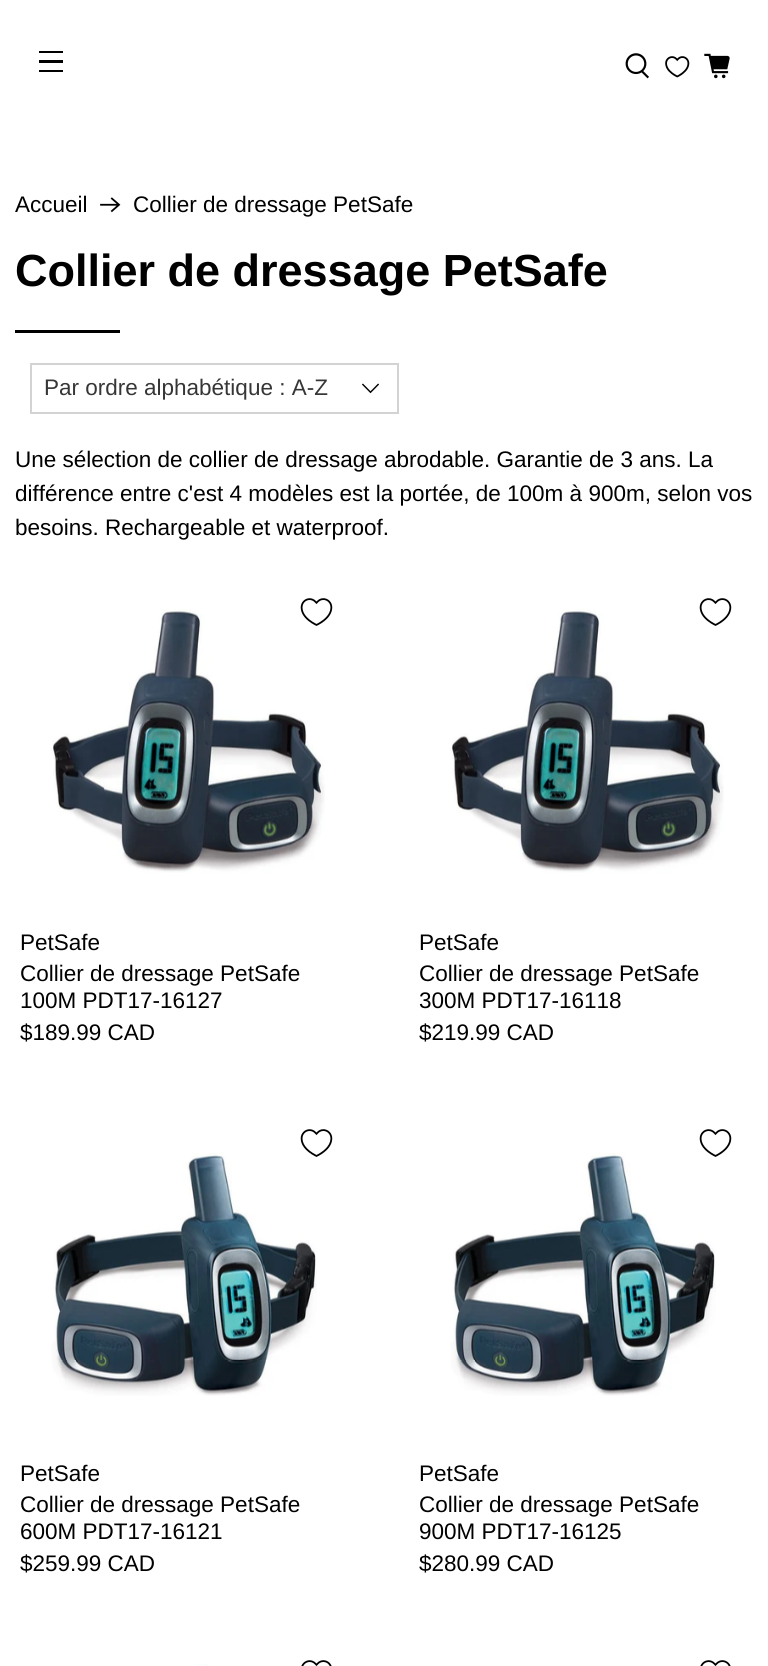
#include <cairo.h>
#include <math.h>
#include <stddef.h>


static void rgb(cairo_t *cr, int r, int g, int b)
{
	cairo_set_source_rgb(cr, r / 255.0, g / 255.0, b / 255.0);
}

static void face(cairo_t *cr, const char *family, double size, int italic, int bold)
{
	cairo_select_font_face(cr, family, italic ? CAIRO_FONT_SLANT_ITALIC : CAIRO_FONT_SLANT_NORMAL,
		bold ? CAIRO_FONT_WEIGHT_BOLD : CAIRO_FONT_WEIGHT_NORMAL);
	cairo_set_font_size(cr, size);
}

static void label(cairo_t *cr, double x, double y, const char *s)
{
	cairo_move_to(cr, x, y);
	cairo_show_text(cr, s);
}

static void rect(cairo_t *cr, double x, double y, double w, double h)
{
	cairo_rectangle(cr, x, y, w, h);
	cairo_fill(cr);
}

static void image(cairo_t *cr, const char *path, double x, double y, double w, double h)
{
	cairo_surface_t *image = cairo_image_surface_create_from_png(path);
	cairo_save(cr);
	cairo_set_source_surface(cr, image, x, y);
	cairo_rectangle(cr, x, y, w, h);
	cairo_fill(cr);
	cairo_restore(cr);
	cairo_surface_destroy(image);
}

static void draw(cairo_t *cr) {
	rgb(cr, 255, 255, 255);
	cairo_paint(cr);
	rgb(cr, 0, 0, 0);
	rect(cr, 39, 51, 24, 2);
	rect(cr, 39, 60, 24, 3);
	rect(cr, 39, 70, 24, 2);
	image(cr, "image0.png", 625, 53, 24, 26);
	image(cr, "image1.png", 665, 56, 25, 22);
	image(cr, "image2.png", 704, 53, 26, 26);
	face(cr, "Liberation Sans", 22.5, 0, 0);
	label(cr, 15, 212, "Accueil");
	image(cr, "image3.png", 100, 197, 21, 16);
	label(cr, 133, 212, "Collier de dressage PetSafe");
	face(cr, "Liberation Sans", 45, 0, 1);
	label(cr, 15, 286, "Collier de dressage PetSafe");
	rect(cr, 15, 330, 105, 3);
	cairo_rectangle(cr, 31, 364, 367, 49);
	rgb(cr, 211, 211, 211);
	cairo_stroke(cr);
	face(cr, "Liberation Sans", 22.5, 0, 0);
	rgb(cr, 54, 54, 54);
	label(cr, 44, 395, "Par ordre alphabétique : A-Z");
	image(cr, "image4.png", 362, 383, 17, 11);
	rgb(cr, 0, 0, 0);
	label(cr, 15, 467, "Une sélection de collier de dressage abrodable. Garantie de 3 ans. La");
	label(cr, 15, 501, "différence entre c'est 4 modèles est la portée, de 100m à 900m, selon vos");
	label(cr, 15, 535, "besoins. Rechargeable et waterproof.");
	image(cr, "image6.png", 51, 609, 274, 264);
	image(cr, "image5.png", 300, 598, 33, 28);
	label(cr, 20, 950, "PetSafe");
	label(cr, 20, 981, "Collier de dressage PetSafe");
	label(cr, 20, 1008, "100M PDT17-16127");
	label(cr, 20, 1040, "$189.99 CAD");
	image(cr, "image6.png", 450, 609, 274, 264);
	image(cr, "image5.png", 699, 598, 33, 28);
	label(cr, 419, 950, "PetSafe");
	label(cr, 419, 981, "Collier de dressage PetSafe");
	label(cr, 419, 1008, "300M PDT17-16118");
	label(cr, 419, 1040, "$219.99 CAD");
	image(cr, "image7.png", 51, 1153, 266, 243);
	image(cr, "image5.png", 300, 1129, 33, 28);
	label(cr, 20, 1481, "PetSafe");
	label(cr, 20, 1512, "Collier de dressage PetSafe");
	label(cr, 20, 1539, "600M PDT17-16121");
	label(cr, 20, 1571, "$259.99 CAD");
	image(cr, "image7.png", 450, 1153, 266, 243);
	image(cr, "image5.png", 699, 1129, 33, 28);
	label(cr, 419, 1481, "PetSafe");
	label(cr, 419, 1512, "Collier de dressage PetSafe");
	label(cr, 419, 1539, "900M PDT17-16125");
	label(cr, 419, 1571, "$280.99 CAD");
	image(cr, "image8.png", 196, 1664, 13, 2);
	image(cr, "image9.png", 301, 1660, 31, 6);
	image(cr, "image9.png", 700, 1660, 31, 6);
}

int main(void) {
	cairo_surface_t *surface = cairo_image_surface_create(CAIRO_FORMAT_RGB24, 768, 1666);
	cairo_t *cr = cairo_create(surface);
	cairo_font_options_t *options = cairo_font_options_create();
	cairo_font_options_set_hint_metrics(options, CAIRO_HINT_METRICS_OFF);
	cairo_font_options_set_hint_style(options, CAIRO_HINT_STYLE_NONE);
	cairo_set_font_options(cr, options);
	cairo_set_miter_limit(cr, 4);
	draw(cr);
	cairo_surface_write_to_png(surface, "render.png");
	cairo_font_options_destroy(options);
	cairo_destroy(cr);
	cairo_surface_destroy(surface);
	return 0;
}
